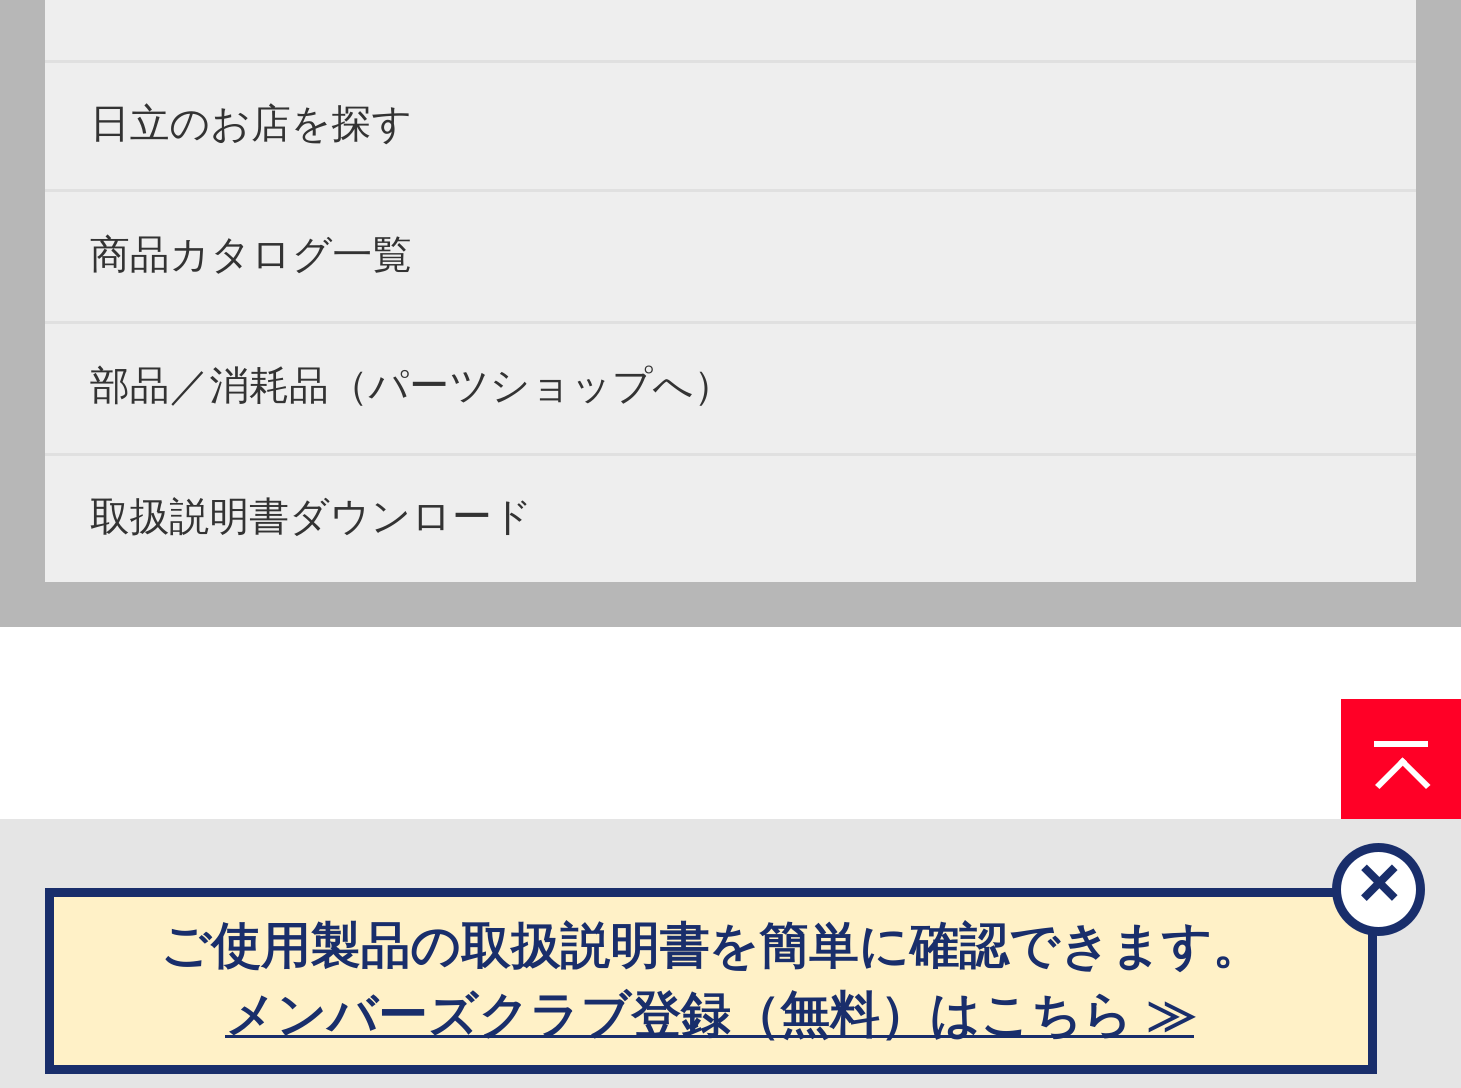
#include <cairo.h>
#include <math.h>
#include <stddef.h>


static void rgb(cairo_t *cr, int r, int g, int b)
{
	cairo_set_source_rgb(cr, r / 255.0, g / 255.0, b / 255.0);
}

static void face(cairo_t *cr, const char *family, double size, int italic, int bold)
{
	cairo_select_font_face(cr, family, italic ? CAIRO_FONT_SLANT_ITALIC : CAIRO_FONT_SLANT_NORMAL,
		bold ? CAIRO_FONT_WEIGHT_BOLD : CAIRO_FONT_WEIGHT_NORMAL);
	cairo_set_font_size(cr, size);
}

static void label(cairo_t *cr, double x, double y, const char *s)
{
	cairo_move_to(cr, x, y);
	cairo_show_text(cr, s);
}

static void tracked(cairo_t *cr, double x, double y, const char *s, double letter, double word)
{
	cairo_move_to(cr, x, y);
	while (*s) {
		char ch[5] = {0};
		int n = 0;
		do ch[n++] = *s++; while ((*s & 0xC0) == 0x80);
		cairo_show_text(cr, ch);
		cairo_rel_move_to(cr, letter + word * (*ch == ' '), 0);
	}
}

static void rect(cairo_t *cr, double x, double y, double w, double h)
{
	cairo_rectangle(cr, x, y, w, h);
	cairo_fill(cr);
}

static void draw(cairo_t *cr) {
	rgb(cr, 255, 255, 255);
	cairo_paint(cr);
	rgb(cr, 183, 183, 183);
	rect(cr, 0, 0, 1461, 627);
	rgb(cr, 238, 238, 238);
	rect(cr, 45, 0, 1371, 60);
	rect(cr, 45, 63, 1371, 126);
	rgb(cr, 224, 224, 224);
	rect(cr, 45, 60, 1371, 3);
	face(cr, "WenQuanYi Zen Hei Medium", 39.8, 0, 0);
	rgb(cr, 51, 51, 51);
	label(cr, 90, 137, "日立のお店を探す");
	rgb(cr, 238, 238, 238);
	rect(cr, 45, 192, 1371, 129);
	rgb(cr, 224, 224, 224);
	rect(cr, 45, 189, 1371, 3);
	rgb(cr, 51, 51, 51);
	label(cr, 90, 268, "商品カタログ一覧");
	rgb(cr, 238, 238, 238);
	rect(cr, 45, 324, 1371, 129);
	rgb(cr, 224, 224, 224);
	rect(cr, 45, 321, 1371, 3);
	rgb(cr, 51, 51, 51);
	label(cr, 90, 399, "部品／消耗品（パーツショップへ）");
	rgb(cr, 238, 238, 238);
	rect(cr, 45, 456, 1371, 126);
	rgb(cr, 224, 224, 224);
	rect(cr, 45, 453, 1371, 3);
	rgb(cr, 51, 51, 51);
	label(cr, 90, 530, "取扱説明書ダウンロード");
	rgb(cr, 229, 229, 229);
	rect(cr, 0, 819, 1461, 269);
	rgb(cr, 255, 0, 38);
	rect(cr, 1341, 699, 120, 120);
	rgb(cr, 255, 255, 255);
	rect(cr, 1374, 741, 54, 6);
	cairo_new_path(cr);
	cairo_move_to(cr, 1375, 785);
	cairo_line_to(cr, 1402.5, 757.5);
	cairo_line_to(cr, 1407, 761.5);
	cairo_line_to(cr, 1379.5, 789);
	cairo_close_path(cr);
	cairo_fill(cr);
	cairo_new_path(cr);
	cairo_move_to(cr, 1398.5, 761.5);
	cairo_line_to(cr, 1402.5, 757.5);
	cairo_line_to(cr, 1430.5, 785);
	cairo_line_to(cr, 1426, 789);
	cairo_close_path(cr);
	cairo_fill(cr);
	rgb(cr, 255, 241, 199);
	cairo_rectangle(cr, 49.5, 892.5, 1323, 177);
	cairo_fill_preserve(cr);
	rgb(cr, 25, 46, 107);
	cairo_set_line_width(cr, 9);
	cairo_stroke(cr);
	rgb(cr, 255, 255, 255);
	cairo_arc(cr, 1378.5, 889.5, 42, 0, 2 * M_PI);
	cairo_fill_preserve(cr);
	rgb(cr, 25, 46, 107);
	cairo_stroke(cr);
	face(cr, "Liberation Sans", 73, 0, 1);
	label(cr, 1358, 907, "×");
	face(cr, "WenQuanYi Zen Hei", 49.7, 0, 1);
	label(cr, 160, 963, "ご使用製品の取扱説明書");
	label(cr, 708, 963, "を簡単に確認できます。");
	rect(cr, 225, 1035, 969, 3);
	tracked(cr, 225, 1032, "メンバーズクラブ登録（無料）はこちら ≫", 0, -1);
}

int main(void) {
	cairo_surface_t *surface = cairo_image_surface_create(CAIRO_FORMAT_RGB24, 1461, 1088);
	cairo_t *cr = cairo_create(surface);
	cairo_font_options_t *options = cairo_font_options_create();
	cairo_font_options_set_hint_metrics(options, CAIRO_HINT_METRICS_OFF);
	cairo_font_options_set_hint_style(options, CAIRO_HINT_STYLE_NONE);
	cairo_set_font_options(cr, options);
	cairo_set_miter_limit(cr, 4);
	draw(cr);
	cairo_surface_write_to_png(surface, "render.png");
	cairo_font_options_destroy(options);
	cairo_destroy(cr);
	cairo_surface_destroy(surface);
	return 0;
}
